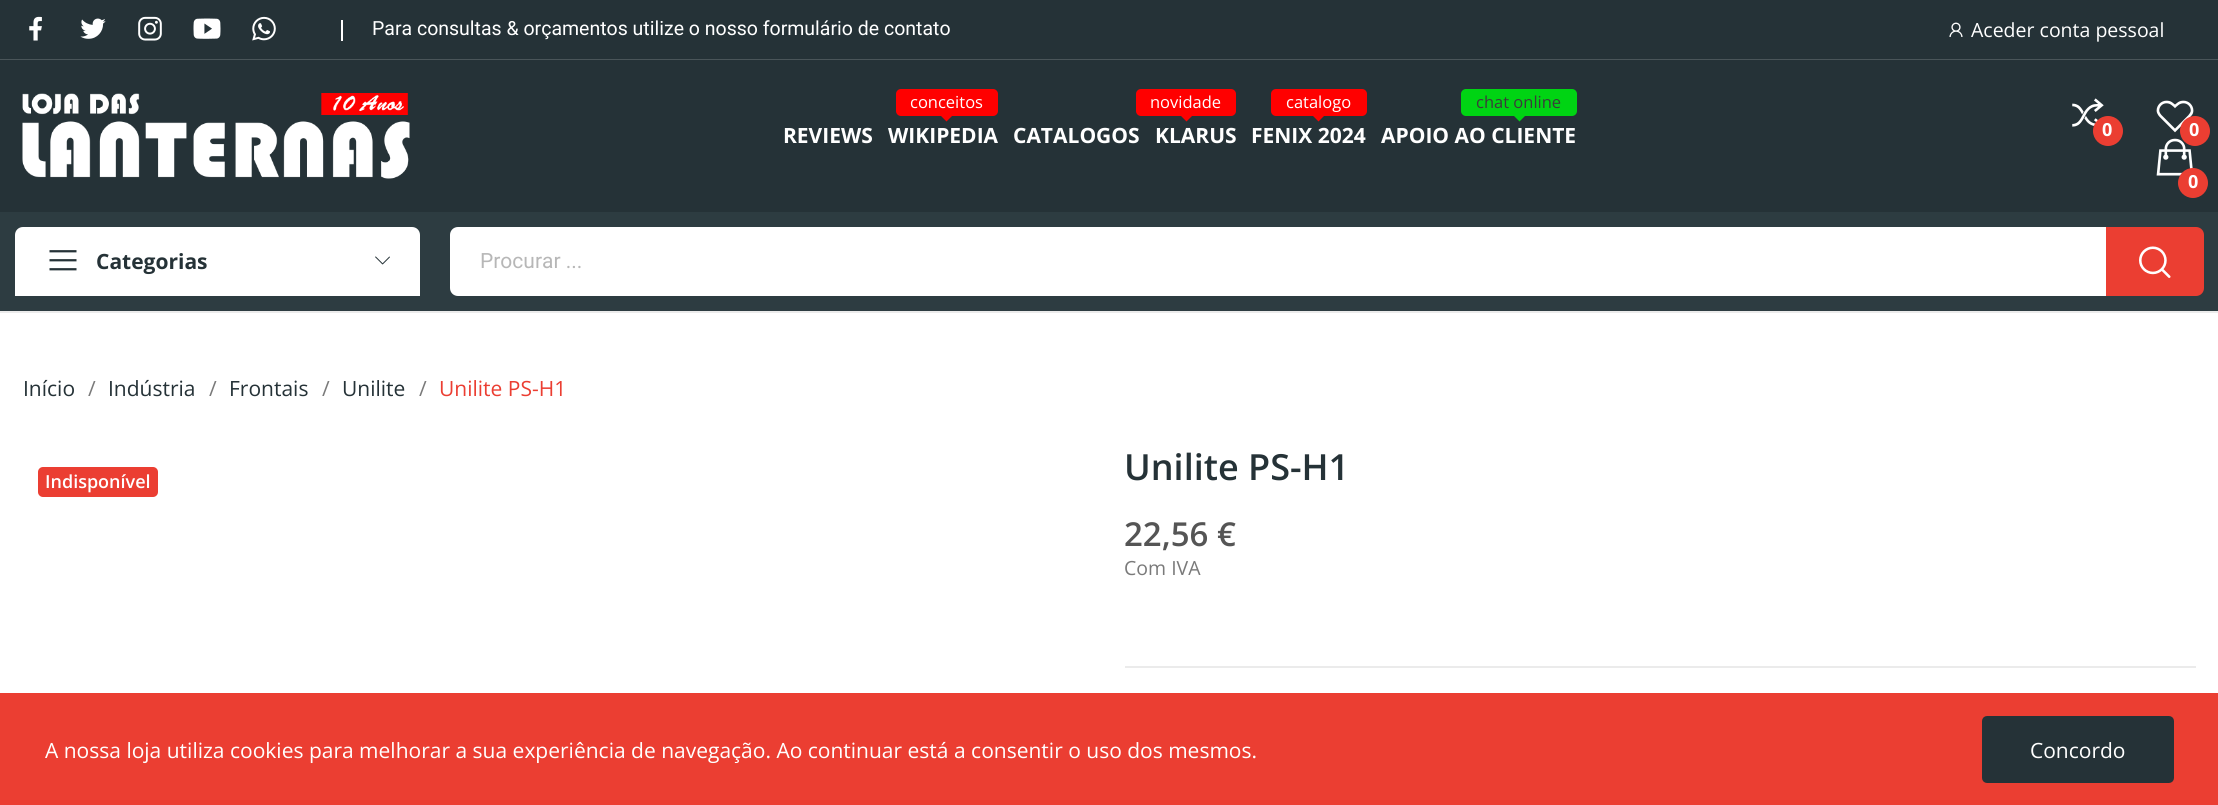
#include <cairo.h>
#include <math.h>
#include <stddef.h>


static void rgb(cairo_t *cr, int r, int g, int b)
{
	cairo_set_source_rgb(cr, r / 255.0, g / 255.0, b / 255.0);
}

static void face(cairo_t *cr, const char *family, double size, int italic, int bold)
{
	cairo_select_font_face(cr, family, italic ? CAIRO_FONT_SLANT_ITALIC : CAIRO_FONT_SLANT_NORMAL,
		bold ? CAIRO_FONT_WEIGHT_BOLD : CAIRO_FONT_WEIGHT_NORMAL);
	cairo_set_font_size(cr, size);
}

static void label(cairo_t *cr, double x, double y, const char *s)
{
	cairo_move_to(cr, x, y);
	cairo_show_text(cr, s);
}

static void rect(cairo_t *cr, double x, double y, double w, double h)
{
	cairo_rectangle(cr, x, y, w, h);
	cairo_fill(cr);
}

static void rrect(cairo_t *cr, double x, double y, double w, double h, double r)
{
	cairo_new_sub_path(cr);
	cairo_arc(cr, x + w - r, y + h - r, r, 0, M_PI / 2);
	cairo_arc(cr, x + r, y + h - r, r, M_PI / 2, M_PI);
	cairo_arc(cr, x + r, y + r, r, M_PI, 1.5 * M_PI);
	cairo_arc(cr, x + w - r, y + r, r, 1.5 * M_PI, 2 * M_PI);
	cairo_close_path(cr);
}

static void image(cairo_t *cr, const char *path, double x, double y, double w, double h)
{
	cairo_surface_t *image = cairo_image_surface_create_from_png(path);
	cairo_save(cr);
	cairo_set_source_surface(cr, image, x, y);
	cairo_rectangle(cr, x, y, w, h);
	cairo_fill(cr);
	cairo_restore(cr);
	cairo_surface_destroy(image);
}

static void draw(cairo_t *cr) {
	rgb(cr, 255, 255, 255);
	cairo_paint(cr);
	rgb(cr, 235, 235, 235);
	rect(cr, 0, 311, 2218, 2);
	rgb(cr, 37, 50, 55);
	rect(cr, 0, 0, 2218, 59);
	rgb(cr, 74, 85, 89);
	rect(cr, 0, 59, 2218, 1);
	image(cr, "image0.png", 29, 16, 13, 25);
	image(cr, "image1.png", 80, 18, 26, 21);
	image(cr, "image2.png", 138, 16, 24, 25);
	image(cr, "image3.png", 193, 18, 28, 21);
	image(cr, "image4.png", 252, 16, 24, 25);
	rgb(cr, 255, 255, 255);
	rect(cr, 341, 20, 2, 21);
	face(cr, "Roboto", 19.5, 0, 0);
	label(cr, 372, 35, "Para consultas & orçamentos utilize o nosso formulário de contato");
	image(cr, "image5.png", 1949, 22, 14, 15);
	face(cr, "Open Sans", 19.5, 0, 0);
	label(cr, 1971, 37, "Aceder conta pessoal");
	rgb(cr, 37, 50, 55);
	rect(cr, 0, 60, 2218, 152);
	image(cr, "image6.png", 22, 93, 388, 86);
	face(cr, "Open Sans", 21, 0, 1);
	rgb(cr, 255, 255, 255);
	label(cr, 783, 143, "REVIEWS");
	rgb(cr, 255, 0, 0);
	rrect(cr, 896, 89, 102, 27, 5);
	cairo_fill(cr);
	face(cr, "Open Sans", 16.5, 0, 0);
	rgb(cr, 255, 255, 255);
	label(cr, 910, 108, "conceitos");
	rgb(cr, 255, 0, 0);
	cairo_new_path(cr);
	cairo_move_to(cr, 940.5, 115.5);
	cairo_line_to(cr, 952.5, 115.5);
	cairo_line_to(cr, 946.5, 121.5);
	cairo_close_path(cr);
	cairo_fill(cr);
	face(cr, "Open Sans", 21, 0, 1);
	rgb(cr, 255, 255, 255);
	label(cr, 888, 143, "WIKIPEDIA");
	label(cr, 1013, 143, "CATALOGOS");
	rgb(cr, 255, 0, 0);
	rrect(cr, 1136, 89, 100, 27, 5);
	cairo_fill(cr);
	face(cr, "Open Sans", 16.5, 0, 0);
	rgb(cr, 255, 255, 255);
	label(cr, 1150, 108, "novidade");
	rgb(cr, 255, 0, 0);
	cairo_new_path(cr);
	cairo_move_to(cr, 1180.5, 115.5);
	cairo_line_to(cr, 1192.5, 115.5);
	cairo_line_to(cr, 1186.5, 121.5);
	cairo_close_path(cr);
	cairo_fill(cr);
	face(cr, "Open Sans", 21, 0, 1);
	rgb(cr, 255, 255, 255);
	label(cr, 1155, 143, "KLARUS");
	rgb(cr, 255, 0, 0);
	rrect(cr, 1271, 89, 96, 27, 5);
	cairo_fill(cr);
	face(cr, "Open Sans", 16.5, 0, 0);
	rgb(cr, 255, 255, 255);
	label(cr, 1286, 108, "catalogo");
	rgb(cr, 255, 0, 0);
	cairo_new_path(cr);
	cairo_move_to(cr, 1312.5, 115.5);
	cairo_line_to(cr, 1324.5, 115.5);
	cairo_line_to(cr, 1318.5, 121.5);
	cairo_close_path(cr);
	cairo_fill(cr);
	face(cr, "Open Sans", 21, 0, 1);
	rgb(cr, 255, 255, 255);
	label(cr, 1251, 143, "FENIX 2024");
	rgb(cr, 0, 212, 19);
	rrect(cr, 1461, 89, 116, 27, 5);
	cairo_fill(cr);
	face(cr, "Open Sans", 16.5, 0, 0);
	rgb(cr, 59, 59, 59);
	label(cr, 1476, 108, "chat online");
	rgb(cr, 0, 212, 19);
	cairo_new_path(cr);
	cairo_move_to(cr, 1513.5, 115.5);
	cairo_line_to(cr, 1525.5, 115.5);
	cairo_line_to(cr, 1519.5, 121.5);
	cairo_close_path(cr);
	cairo_fill(cr);
	face(cr, "Open Sans", 21, 0, 1);
	rgb(cr, 255, 255, 255);
	label(cr, 1381, 143, "APOIO AO CLIENTE");
	image(cr, "image7.png", 2072, 98, 32, 29);
	rgb(cr, 235, 62, 50);
	cairo_arc(cr, 2108, 131, 15, 0, 2 * M_PI);
	cairo_fill(cr);
	face(cr, "Open Sans", 18, 0, 1);
	rgb(cr, 255, 255, 255);
	label(cr, 2102, 136, "0");
	image(cr, "image8.png", 2156, 100, 38, 33);
	rgb(cr, 235, 62, 50);
	cairo_arc(cr, 2195, 131, 15, 0, 2 * M_PI);
	cairo_fill(cr);
	rgb(cr, 255, 255, 255);
	label(cr, 2189, 136, "0");
	image(cr, "image9.png", 2156, 138, 37, 38);
	rgb(cr, 235, 62, 50);
	cairo_arc(cr, 2193, 183, 15, 0, 2 * M_PI);
	cairo_fill(cr);
	rgb(cr, 255, 255, 255);
	label(cr, 2188, 188, "0");
	rgb(cr, 45, 60, 65);
	rect(cr, 0, 212, 2218, 99);
	rgb(cr, 255, 255, 255);
	cairo_new_path(cr);
	cairo_move_to(cr, 23, 227);
	cairo_line_to(cr, 412, 227);
	cairo_curve_to(cr, 416.5, 227, 420, 230.5, 420, 235);
	cairo_line_to(cr, 420, 296);
	cairo_line_to(cr, 15, 296);
	cairo_line_to(cr, 15, 235);
	cairo_curve_to(cr, 15, 230.5, 18.5, 227, 23, 227);
	cairo_close_path(cr);
	cairo_fill(cr);
	image(cr, "image10.png", 49, 250, 28, 21);
	face(cr, "Open Sans", 21, 0, 1);
	rgb(cr, 37, 50, 55);
	label(cr, 96, 269, "Categorias");
	image(cr, "image11.png", 375, 256, 15, 9);
	rgb(cr, 255, 255, 255);
	cairo_new_path(cr);
	cairo_move_to(cr, 458, 227);
	cairo_line_to(cr, 2106, 227);
	cairo_line_to(cr, 2106, 296);
	cairo_line_to(cr, 458, 296);
	cairo_curve_to(cr, 453.5, 296, 450, 292.5, 450, 288);
	cairo_line_to(cr, 450, 235);
	cairo_curve_to(cr, 450, 230.5, 453.5, 227, 458, 227);
	cairo_close_path(cr);
	cairo_fill(cr);
	face(cr, "Roboto", 21, 0, 0);
	rgb(cr, 183, 183, 183);
	label(cr, 480, 268, "Procurar ...");
	rgb(cr, 235, 62, 50);
	cairo_new_path(cr);
	cairo_move_to(cr, 2106, 227);
	cairo_line_to(cr, 2196, 227);
	cairo_curve_to(cr, 2200.5, 227, 2204, 230.5, 2204, 235);
	cairo_line_to(cr, 2204, 288);
	cairo_curve_to(cr, 2204, 292.5, 2200.5, 296, 2196, 296);
	cairo_line_to(cr, 2106, 296);
	cairo_close_path(cr);
	cairo_fill(cr);
	image(cr, "image12.png", 2139, 246, 32, 32);
	face(cr, "Open Sans", 21, 0, 0);
	rgb(cr, 37, 50, 55);
	label(cr, 23, 396, "Início");
	rgb(cr, 122, 122, 122);
	label(cr, 88, 396, "/");
	rgb(cr, 37, 50, 55);
	label(cr, 108, 396, "Indústria");
	rgb(cr, 122, 122, 122);
	label(cr, 209, 396, "/");
	rgb(cr, 37, 50, 55);
	label(cr, 229, 396, "Frontais");
	rgb(cr, 122, 122, 122);
	label(cr, 322, 396, "/");
	rgb(cr, 37, 50, 55);
	label(cr, 342, 396, "Unilite");
	rgb(cr, 122, 122, 122);
	label(cr, 419, 396, "/");
	rgb(cr, 235, 62, 50);
	label(cr, 439, 396, "Unilite PS-H1");
	rrect(cr, 38, 467, 120, 30, 5);
	cairo_fill(cr);
	face(cr, "Open Sans SemiBold", 18, 0, 0);
	rgb(cr, 255, 255, 255);
	label(cr, 45, 488, "Indisponível");
	face(cr, "Open Sans SemiBold", 36, 0, 0);
	rgb(cr, 37, 50, 55);
	label(cr, 1124, 480, "Unilite PS-H1");
	face(cr, "Open Sans SemiBold", 33, 0, 0);
	rgb(cr, 85, 85, 85);
	label(cr, 1124, 546, "22,56 €");
	face(cr, "Open Sans", 19.5, 0, 0);
	rgb(cr, 122, 122, 122);
	label(cr, 1124, 575, "Com IVA");
	rgb(cr, 235, 235, 235);
	rect(cr, 1125, 666, 1071, 2);
	rgb(cr, 235, 62, 50);
	rect(cr, 0, 693, 2218, 112);
	face(cr, "Open Sans", 21, 0, 0);
	rgb(cr, 255, 255, 255);
	label(cr, 45, 758, "A nossa loja utiliza cookies para melhorar a sua experiência de navegação. Ao continuar está a consentir o uso dos mesmos.");
	rgb(cr, 37, 50, 55);
	rrect(cr, 1983.5, 717.5, 189, 64, 3.5);
	cairo_fill_preserve(cr);
	cairo_set_line_width(cr, 3);
	cairo_stroke(cr);
	rgb(cr, 255, 255, 255);
	label(cr, 2030, 758, "Concordo");
}

int main(void) {
	cairo_surface_t *surface = cairo_image_surface_create(CAIRO_FORMAT_RGB24, 2218, 805);
	cairo_t *cr = cairo_create(surface);
	cairo_font_options_t *options = cairo_font_options_create();
	cairo_font_options_set_hint_metrics(options, CAIRO_HINT_METRICS_OFF);
	cairo_font_options_set_hint_style(options, CAIRO_HINT_STYLE_NONE);
	cairo_set_font_options(cr, options);
	cairo_set_miter_limit(cr, 4);
	draw(cr);
	cairo_surface_write_to_png(surface, "render.png");
	cairo_font_options_destroy(options);
	cairo_destroy(cr);
	cairo_surface_destroy(surface);
	return 0;
}
